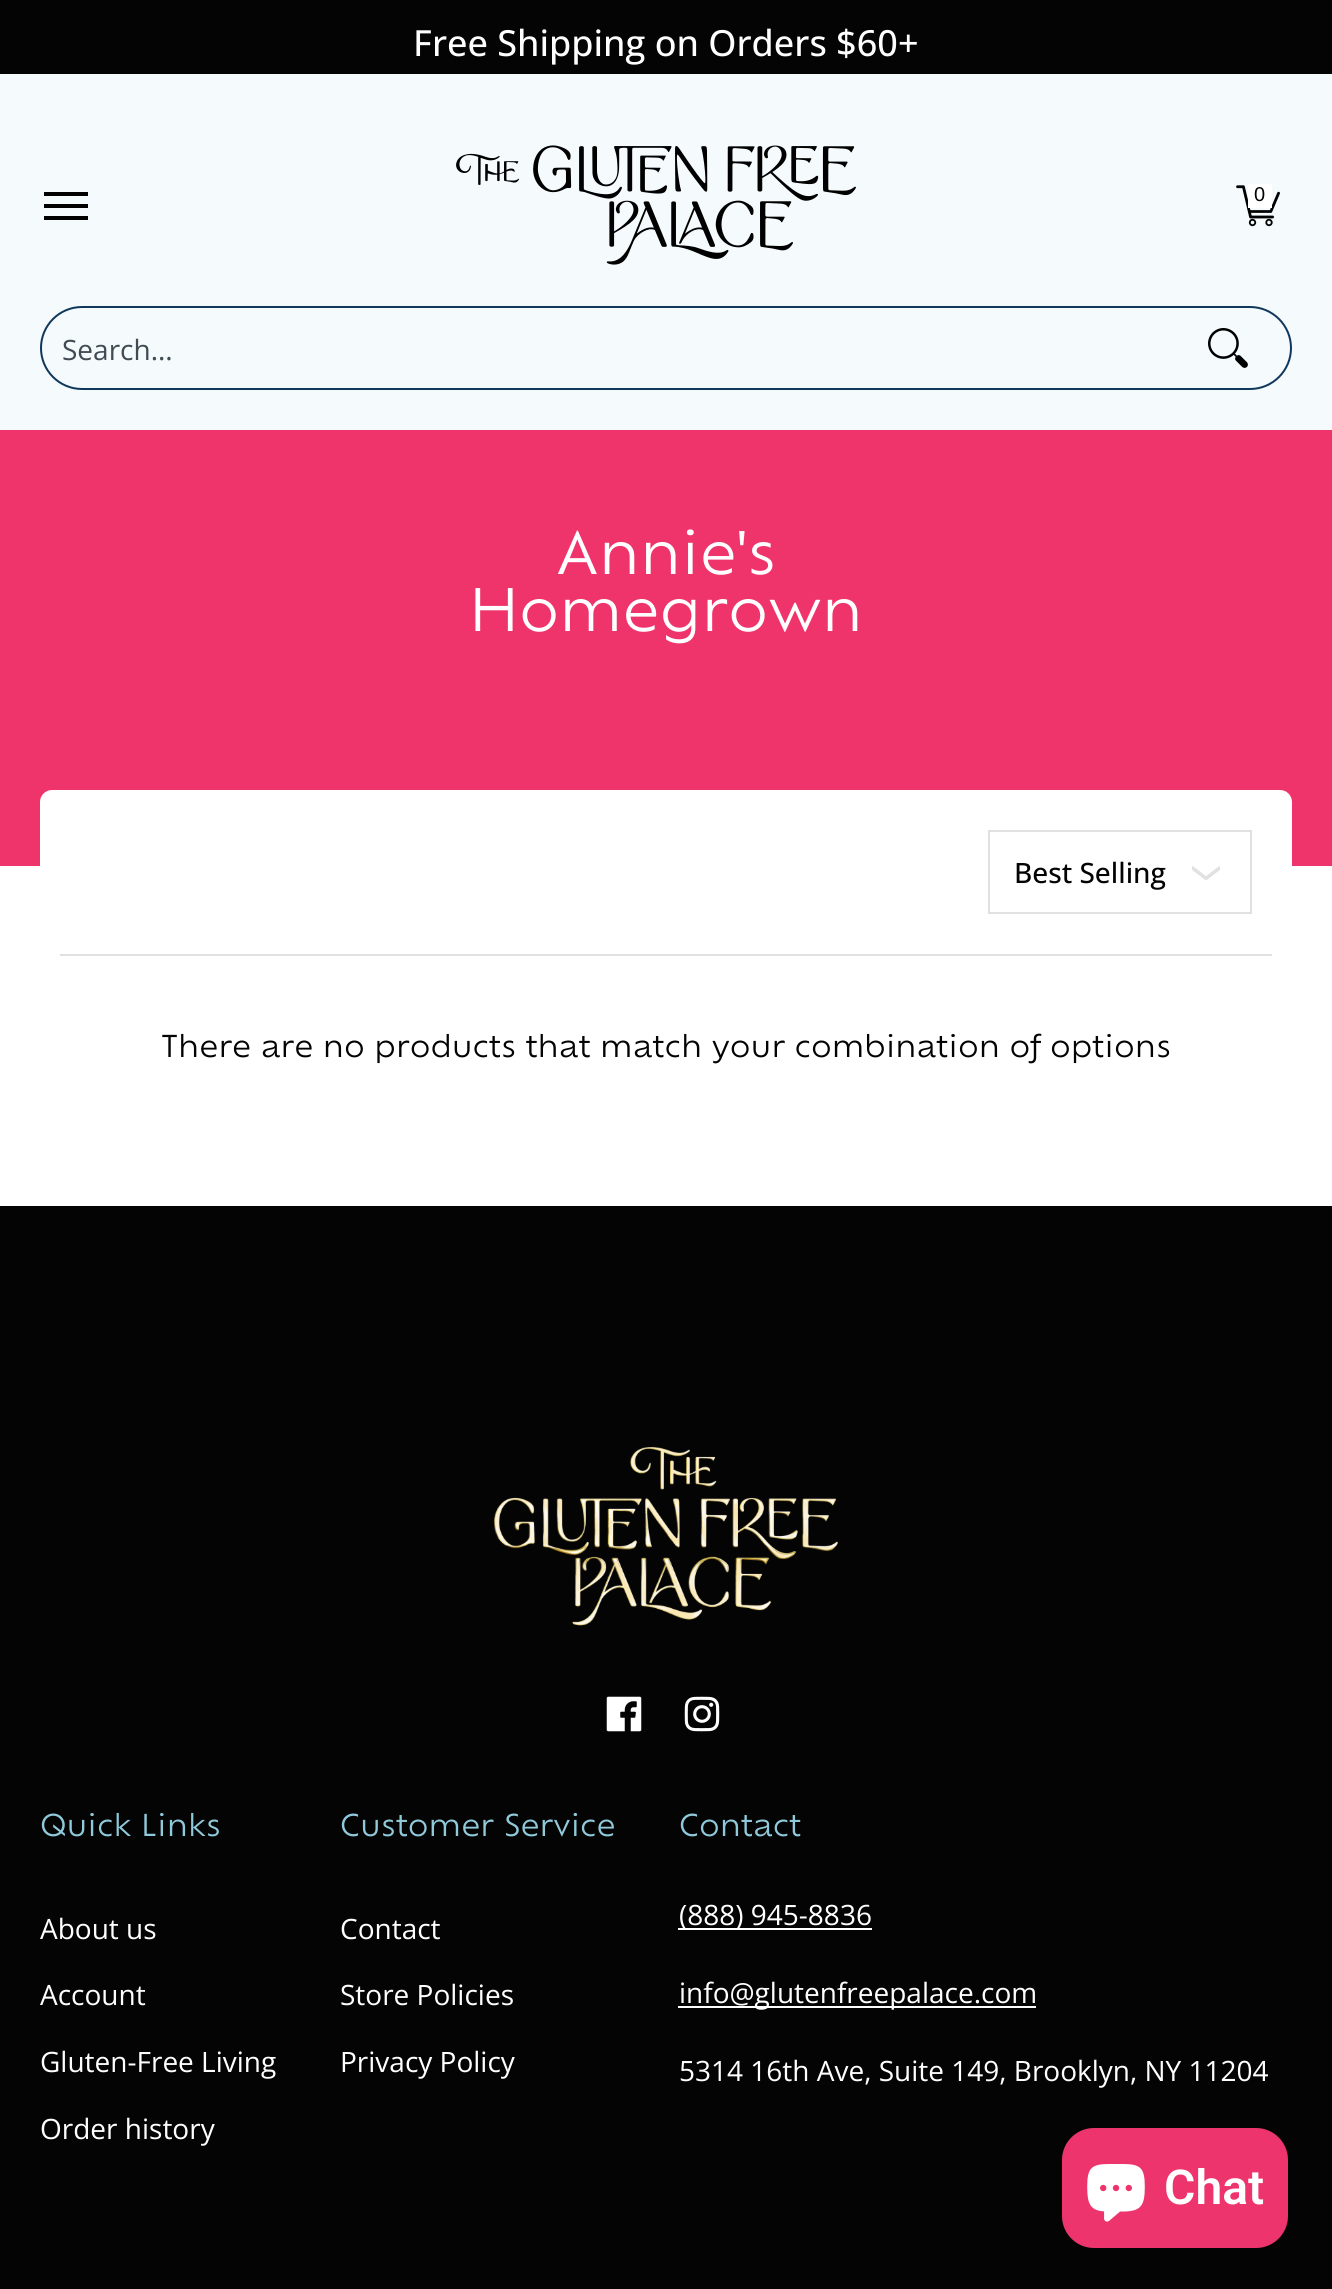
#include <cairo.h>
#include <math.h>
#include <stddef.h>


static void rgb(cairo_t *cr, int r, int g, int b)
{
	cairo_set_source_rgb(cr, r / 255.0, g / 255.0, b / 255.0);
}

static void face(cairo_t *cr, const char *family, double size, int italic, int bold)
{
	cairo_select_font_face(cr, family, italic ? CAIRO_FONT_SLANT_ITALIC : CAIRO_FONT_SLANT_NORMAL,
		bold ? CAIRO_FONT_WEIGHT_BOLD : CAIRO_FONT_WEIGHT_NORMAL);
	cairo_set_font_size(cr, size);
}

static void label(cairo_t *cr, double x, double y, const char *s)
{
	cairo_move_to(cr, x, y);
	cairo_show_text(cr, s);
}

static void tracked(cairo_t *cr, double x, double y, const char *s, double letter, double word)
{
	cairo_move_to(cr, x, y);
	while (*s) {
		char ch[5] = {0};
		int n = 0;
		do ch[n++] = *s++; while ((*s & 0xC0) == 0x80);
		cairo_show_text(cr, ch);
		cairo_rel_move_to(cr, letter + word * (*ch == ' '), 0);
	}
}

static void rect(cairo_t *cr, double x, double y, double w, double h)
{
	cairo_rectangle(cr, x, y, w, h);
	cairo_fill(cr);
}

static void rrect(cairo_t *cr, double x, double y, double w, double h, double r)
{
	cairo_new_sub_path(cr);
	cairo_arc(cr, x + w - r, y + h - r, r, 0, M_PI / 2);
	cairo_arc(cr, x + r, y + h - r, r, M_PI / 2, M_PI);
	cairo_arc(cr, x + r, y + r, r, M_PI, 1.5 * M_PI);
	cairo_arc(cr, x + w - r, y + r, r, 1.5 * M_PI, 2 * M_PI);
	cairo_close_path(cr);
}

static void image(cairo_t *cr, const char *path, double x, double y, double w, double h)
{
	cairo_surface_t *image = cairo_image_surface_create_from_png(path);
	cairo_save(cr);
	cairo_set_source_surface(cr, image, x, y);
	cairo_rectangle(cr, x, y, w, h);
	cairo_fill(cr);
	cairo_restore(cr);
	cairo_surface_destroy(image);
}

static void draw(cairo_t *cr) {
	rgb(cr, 255, 255, 255);
	cairo_paint(cr);
	rgb(cr, 4, 4, 5);
	rect(cr, 0, 0, 1332, 74);
	face(cr, "Open Sans Medium", 36, 0, 0);
	rgb(cr, 255, 255, 255);
	label(cr, 413, 56, "Free Shipping on Orders $60+");
	rgb(cr, 245, 250, 252);
	rect(cr, 0, 74, 1332, 356);
	rgb(cr, 0, 0, 0);
	rect(cr, 44, 192, 44, 4);
	rect(cr, 44, 216, 44, 4);
	rect(cr, 44, 204, 44, 4);
	image(cr, "image0.png", 456, 145, 400, 120);
	image(cr, "image1.png", 1236, 185, 44, 42);
	rgb(cr, 255, 255, 255);
	rect(cr, 1248, 184, 24, 24);
	face(cr, "Liberation Sans", 20, 0, 0);
	rgb(cr, 2, 3, 2);
	label(cr, 1254, 201, "0");
	rrect(cr, 41, 307, 1250, 82, 41);
	rgb(cr, 16, 55, 92);
	cairo_stroke(cr);
	face(cr, "Open Sans", 28, 0, 0);
	rgb(cr, 65, 75, 83);
	label(cr, 62, 360, "Search...");
	image(cr, "image2.png", 1208, 328, 40, 40);
	rgb(cr, 239, 52, 108);
	rect(cr, 0, 430, 1332, 436);
	face(cr, "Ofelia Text", 57.25, 0, 0);
	rgb(cr, 255, 255, 255);
	label(cr, 556, 574, "Annie's");
	label(cr, 469, 631, "Homegrown");
	rrect(cr, 40, 790, 1252, 356, 12);
	cairo_fill(cr);
	rgb(cr, 225, 225, 225);
	rect(cr, 60, 954, 1212, 2);
	cairo_rectangle(cr, 989, 831, 262, 82);
	cairo_stroke(cr);
	face(cr, "Open Sans Medium", 28, 0, 0);
	rgb(cr, 2, 3, 2);
	label(cr, 1014, 883, "Best Selling");
	cairo_save(cr);
	cairo_rectangle(cr, 1192, 858, 28, 28);
	cairo_clip(cr);
	cairo_new_path(cr);
	cairo_move_to(cr, 1192.5, 868);
	cairo_line_to(cr, 1205.5, 878);
	cairo_curve_to(cr, 1206, 878.5, 1206.5, 878.5, 1206.5, 878);
	cairo_line_to(cr, 1219.5, 868);
	rgb(cr, 225, 225, 225);
	cairo_set_line_width(cr, 3.5);
	cairo_set_line_cap(cr, CAIRO_LINE_CAP_ROUND);
	cairo_set_line_join(cr, CAIRO_LINE_JOIN_ROUND);
	cairo_stroke(cr);
	cairo_restore(cr);
	face(cr, "Ofelia Text", 29.55, 0, 0);
	tracked(cr, 161, 1057, "There are no products that match your combination of options", 0, -0.25);
	rgb(cr, 4, 4, 5);
	rect(cr, 0, 1206, 1332, 1083);
	image(cr, "image3.png", 493, 1447, 345, 179);
	image(cr, "image4.png", 606, 1696, 36, 36);
	image(cr, "image5.png", 684, 1696, 36, 36);
	rgb(cr, 144, 202, 218);
	label(cr, 40, 1836, "Quick Links");
	face(cr, "Open Sans", 28, 0, 0);
	rgb(cr, 255, 255, 255);
	label(cr, 40, 1939, "About us");
	label(cr, 40, 2005, "Account");
	label(cr, 40, 2072, "Gluten-Free Living");
	label(cr, 40, 2139, "Order history");
	face(cr, "Ofelia Text", 29.55, 0, 0);
	rgb(cr, 144, 202, 218);
	label(cr, 340, 1836, "Customer Service");
	face(cr, "Open Sans", 28, 0, 0);
	rgb(cr, 255, 255, 255);
	label(cr, 340, 1939, "Contact");
	label(cr, 340, 2005, "Store Policies");
	label(cr, 340, 2072, "Privacy Policy");
	face(cr, "Ofelia Text", 29.55, 0, 0);
	rgb(cr, 144, 202, 218);
	label(cr, 679, 1836, "Contact");
	rgb(cr, 255, 255, 255);
	rect(cr, 678, 1928, 194, 2);
	face(cr, "Open Sans", 28, 0, 0);
	label(cr, 679, 1925, "(888) 945-8836");
	rect(cr, 678, 2006, 358, 2);
	label(cr, 679, 2003, "info@glutenfreepalace.com");
	label(cr, 679, 2081, "5314 16th Ave, Suite 149, Brooklyn, NY 11204");
	rgb(cr, 238, 52, 109);
	rrect(cr, 1062, 2128, 226, 120, 32);
	cairo_fill(cr);
	image(cr, "image6.png", 1087, 2164, 58, 58);
	face(cr, "Roboto SemiBold", 48, 0, 0);
	rgb(cr, 255, 255, 255);
	label(cr, 1164, 2204, "Chat");
}

int main(void) {
	cairo_surface_t *surface = cairo_image_surface_create(CAIRO_FORMAT_RGB24, 1332, 2289);
	cairo_t *cr = cairo_create(surface);
	cairo_font_options_t *options = cairo_font_options_create();
	cairo_font_options_set_hint_metrics(options, CAIRO_HINT_METRICS_OFF);
	cairo_font_options_set_hint_style(options, CAIRO_HINT_STYLE_NONE);
	cairo_set_font_options(cr, options);
	cairo_set_miter_limit(cr, 4);
	draw(cr);
	cairo_surface_write_to_png(surface, "render.png");
	cairo_font_options_destroy(options);
	cairo_destroy(cr);
	cairo_surface_destroy(surface);
	return 0;
}
